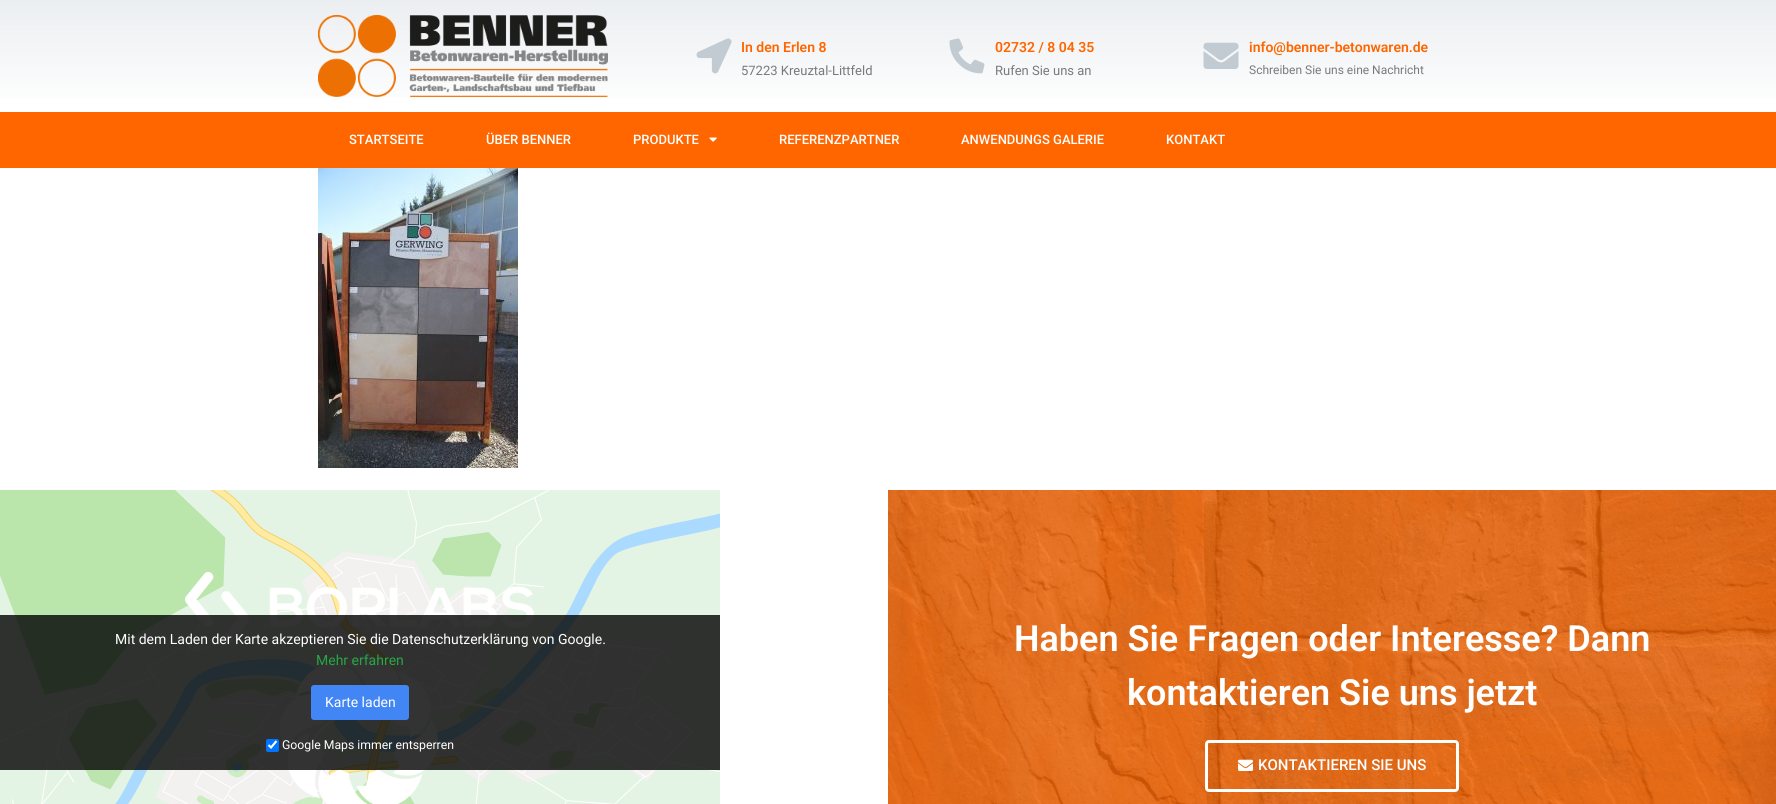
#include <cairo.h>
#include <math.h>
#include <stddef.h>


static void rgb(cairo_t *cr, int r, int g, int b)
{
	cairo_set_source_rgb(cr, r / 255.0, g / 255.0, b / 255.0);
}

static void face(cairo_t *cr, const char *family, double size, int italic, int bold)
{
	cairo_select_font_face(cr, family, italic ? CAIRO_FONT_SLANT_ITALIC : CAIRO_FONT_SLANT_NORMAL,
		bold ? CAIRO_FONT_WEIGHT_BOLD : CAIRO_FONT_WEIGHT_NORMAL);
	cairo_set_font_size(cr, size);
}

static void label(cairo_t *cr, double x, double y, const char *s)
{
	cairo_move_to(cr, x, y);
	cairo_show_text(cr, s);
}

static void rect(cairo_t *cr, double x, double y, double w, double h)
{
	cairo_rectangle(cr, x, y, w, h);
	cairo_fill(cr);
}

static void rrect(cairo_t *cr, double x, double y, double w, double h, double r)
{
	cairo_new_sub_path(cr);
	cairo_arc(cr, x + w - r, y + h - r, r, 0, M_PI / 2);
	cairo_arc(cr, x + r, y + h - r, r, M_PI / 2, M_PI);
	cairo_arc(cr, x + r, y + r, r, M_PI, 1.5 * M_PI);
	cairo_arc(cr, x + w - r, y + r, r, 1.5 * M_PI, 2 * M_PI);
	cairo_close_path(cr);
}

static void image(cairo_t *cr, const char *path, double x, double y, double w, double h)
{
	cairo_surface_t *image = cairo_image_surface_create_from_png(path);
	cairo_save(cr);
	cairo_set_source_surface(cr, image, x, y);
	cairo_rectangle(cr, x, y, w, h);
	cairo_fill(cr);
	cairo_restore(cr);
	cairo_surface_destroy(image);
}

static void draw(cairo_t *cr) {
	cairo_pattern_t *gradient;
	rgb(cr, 255, 255, 255);
	cairo_paint(cr);
	gradient = cairo_pattern_create_linear(888, 0, 888, 112);
	cairo_pattern_add_color_stop_rgba(gradient, 0, 0.922, 0.933, 0.945, 1);
	cairo_pattern_add_color_stop_rgba(gradient, 1, 1, 1, 1, 1);
	cairo_set_source(cr, gradient);
	cairo_pattern_destroy(gradient);
	rect(cr, 0, 0, 1776, 98);
	image(cr, "image0.png", 318, 15, 290, 82);
	image(cr, "image1.png", 696, 38, 36, 36);
	face(cr, "Roboto SemiBold", 14, 0, 0);
	rgb(cr, 255, 102, 0);
	label(cr, 741, 52, "In den Erlen 8");
	face(cr, "Roboto", 13, 0, 0);
	rgb(cr, 122, 122, 122);
	label(cr, 741, 75, "57223 Kreuztal-Littfeld");
	image(cr, "image2.png", 949, 38, 36, 36);
	face(cr, "Roboto SemiBold", 14, 0, 0);
	rgb(cr, 255, 102, 0);
	label(cr, 995, 52, "02732 / 8 04 35");
	face(cr, "Roboto", 13, 0, 0);
	rgb(cr, 122, 122, 122);
	label(cr, 995, 75, "Rufen Sie uns an");
	image(cr, "image3.png", 1203, 42, 36, 27);
	face(cr, "Roboto SemiBold", 14, 0, 0);
	rgb(cr, 255, 102, 0);
	label(cr, 1249, 52, "info@benner-betonwaren.de");
	face(cr, "Roboto", 12, 0, 0);
	rgb(cr, 122, 122, 122);
	label(cr, 1249, 74, "Schreiben Sie uns eine Nachricht");
	rgb(cr, 255, 102, 0);
	rect(cr, 0, 112, 1776, 56);
	face(cr, "Roboto Medium", 13, 0, 0);
	rgb(cr, 255, 255, 255);
	label(cr, 349, 144, "STARTSEITE");
	label(cr, 486, 144, "ÜBER BENNER");
	label(cr, 633, 144, "PRODUKTE");
	image(cr, "image4.png", 709, 137, 8, 5);
	label(cr, 779, 144, "REFERENZPARTNER");
	label(cr, 961, 144, "ANWENDUNGS GALERIE");
	label(cr, 1166, 144, "KONTAKT");
	image(cr, "image5.png", 318, 168, 200, 300);
	image(cr, "image6.png", 0, 490, 720, 314);
	cairo_set_source_rgba(cr, 0, 0, 0, 0.8);
	rect(cr, 0, 615, 720, 155);
	face(cr, "Roboto", 14, 0, 0);
	rgb(cr, 255, 255, 255);
	label(cr, 115, 644, "Mit dem Laden der Karte akzeptieren Sie die Datenschutzerklärung von Google.");
	rgb(cr, 40, 167, 69);
	label(cr, 316, 665, "Mehr erfahren");
	rgb(cr, 66, 133, 244);
	rrect(cr, 311, 685, 98, 35, 3);
	cairo_fill(cr);
	rgb(cr, 255, 255, 255);
	label(cr, 325, 707, "Karte laden");
	rgb(cr, 0, 117, 255);
	rrect(cr, 266, 739, 13, 13, 2);
	cairo_fill(cr);
	cairo_new_path(cr);
	cairo_move_to(cr, 268.5, 745);
	cairo_line_to(cr, 271, 747.5);
	cairo_line_to(cr, 276.5, 741);
	rgb(cr, 255, 255, 255);
	cairo_set_line_width(cr, 2.1);
	cairo_stroke(cr);
	face(cr, "Roboto", 12.25, 0, 0);
	label(cr, 282, 749, "Google Maps immer entsperren");
	rgb(cr, 255, 102, 0);
	rect(cr, 888, 490, 888, 314);
	image(cr, "image7.png", 888, 490, 888, 314);
	face(cr, "Roboto SemiBold", 36, 0, 0);
	rgb(cr, 255, 255, 255);
	label(cr, 1014, 651, "Haben Sie Fragen oder Interesse? Dann");
	label(cr, 1127, 705, "kontaktieren Sie uns jetzt");
	rrect(cr, 1206.5, 741.5, 251, 49, 2.5);
	cairo_set_line_width(cr, 3);
	cairo_stroke(cr);
	image(cr, "image8.png", 1238, 759, 15, 12);
	face(cr, "Roboto Medium", 15, 0, 0);
	label(cr, 1258, 770, "KONTAKTIEREN SIE UNS");
}

int main(void) {
	cairo_surface_t *surface = cairo_image_surface_create(CAIRO_FORMAT_RGB24, 1776, 804);
	cairo_t *cr = cairo_create(surface);
	cairo_font_options_t *options = cairo_font_options_create();
	cairo_font_options_set_hint_metrics(options, CAIRO_HINT_METRICS_OFF);
	cairo_font_options_set_hint_style(options, CAIRO_HINT_STYLE_NONE);
	cairo_set_font_options(cr, options);
	cairo_set_miter_limit(cr, 4);
	draw(cr);
	cairo_surface_write_to_png(surface, "render.png");
	cairo_font_options_destroy(options);
	cairo_destroy(cr);
	cairo_surface_destroy(surface);
	return 0;
}
